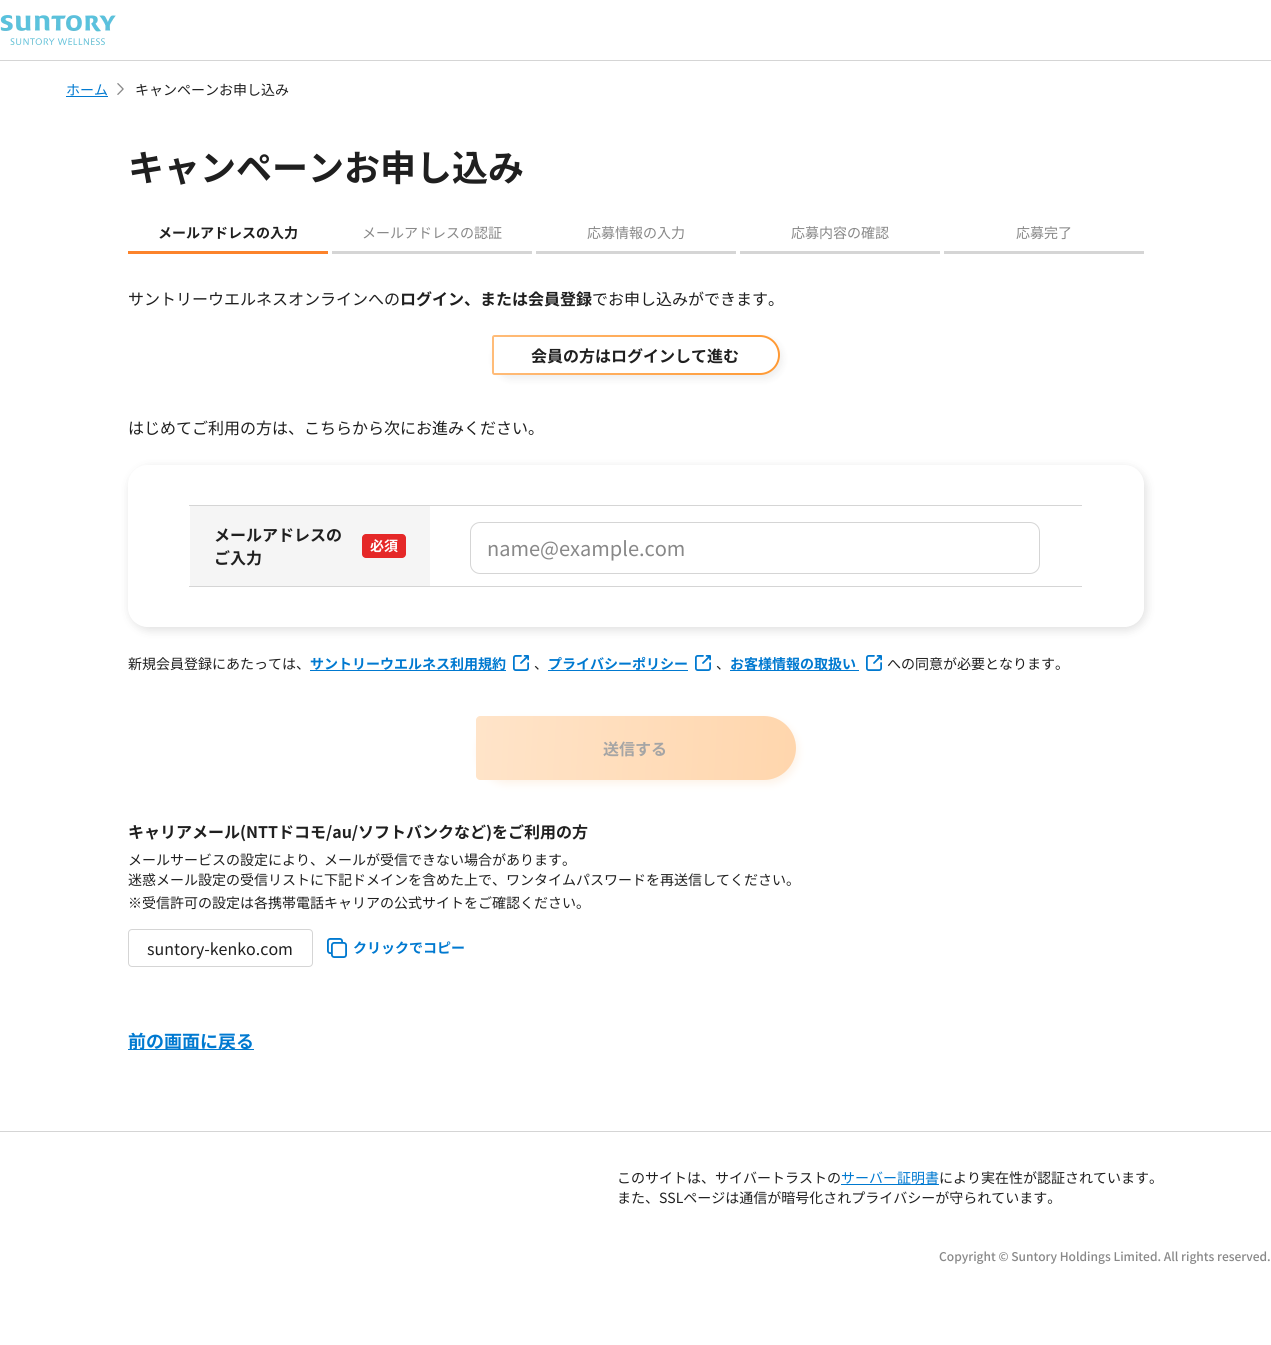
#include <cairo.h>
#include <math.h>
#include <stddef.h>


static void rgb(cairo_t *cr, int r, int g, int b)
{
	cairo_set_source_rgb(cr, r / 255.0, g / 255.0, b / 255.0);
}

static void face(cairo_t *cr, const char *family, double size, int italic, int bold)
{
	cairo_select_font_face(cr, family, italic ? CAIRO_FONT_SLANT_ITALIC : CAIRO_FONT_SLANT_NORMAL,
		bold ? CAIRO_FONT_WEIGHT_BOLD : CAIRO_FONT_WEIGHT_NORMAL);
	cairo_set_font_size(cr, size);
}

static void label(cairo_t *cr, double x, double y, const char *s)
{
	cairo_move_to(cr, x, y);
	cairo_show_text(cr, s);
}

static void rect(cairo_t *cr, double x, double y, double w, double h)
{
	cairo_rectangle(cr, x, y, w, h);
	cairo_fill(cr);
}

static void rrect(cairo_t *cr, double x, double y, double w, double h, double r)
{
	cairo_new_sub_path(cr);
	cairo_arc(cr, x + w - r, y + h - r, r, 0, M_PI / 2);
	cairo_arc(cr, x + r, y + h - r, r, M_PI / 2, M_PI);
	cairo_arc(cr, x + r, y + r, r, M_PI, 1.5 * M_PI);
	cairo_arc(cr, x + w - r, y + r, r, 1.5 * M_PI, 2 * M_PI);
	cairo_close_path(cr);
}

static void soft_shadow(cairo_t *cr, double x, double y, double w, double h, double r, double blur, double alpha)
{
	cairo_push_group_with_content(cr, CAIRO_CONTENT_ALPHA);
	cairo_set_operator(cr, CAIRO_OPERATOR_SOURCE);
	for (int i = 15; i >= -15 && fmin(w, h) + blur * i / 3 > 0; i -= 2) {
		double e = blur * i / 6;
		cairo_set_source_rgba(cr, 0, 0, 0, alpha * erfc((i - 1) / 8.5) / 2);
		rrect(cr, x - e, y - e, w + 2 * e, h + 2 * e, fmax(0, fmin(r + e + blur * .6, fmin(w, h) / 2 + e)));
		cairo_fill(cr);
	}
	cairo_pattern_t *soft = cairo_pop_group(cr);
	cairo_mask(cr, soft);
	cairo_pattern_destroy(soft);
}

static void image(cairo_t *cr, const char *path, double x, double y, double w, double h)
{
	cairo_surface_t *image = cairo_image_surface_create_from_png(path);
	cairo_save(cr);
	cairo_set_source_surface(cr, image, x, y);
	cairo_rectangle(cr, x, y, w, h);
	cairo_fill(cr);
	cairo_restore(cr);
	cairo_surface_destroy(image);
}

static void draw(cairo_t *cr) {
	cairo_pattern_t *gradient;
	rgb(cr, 255, 255, 255);
	cairo_paint(cr);
	rgb(cr, 213, 213, 213);
	rect(cr, 0, 60, 1271, 1);
	image(cr, "image0.png", 0, 15, 116, 30);
	face(cr, "Noto Sans JP", 14, 0, 0);
	rgb(cr, 0, 121, 208);
	label(cr, 66, 95, "ホーム");
	rect(cr, 66, 96, 42, 1);
	image(cr, "image1.png", 117, 83, 7, 12);
	rgb(cr, 31, 31, 31);
	label(cr, 135, 95, "キャンペーンお申し込み");
	face(cr, "Noto Sans JP", 36, 0, 1);
	label(cr, 128, 181, "キャンペーンお申し込み");
	rgb(cr, 252, 131, 43);
	rect(cr, 128, 251, 200, 3);
	face(cr, "Noto Sans JP", 14, 0, 1);
	rgb(cr, 31, 31, 31);
	label(cr, 158, 238, "メールアドレスの入力");
	rgb(cr, 213, 213, 213);
	rect(cr, 332, 251, 200, 3);
	face(cr, "Noto Sans JP", 14, 0, 0);
	rgb(cr, 136, 136, 136);
	label(cr, 362, 238, "メールアドレスの認証");
	rgb(cr, 213, 213, 213);
	rect(cr, 536, 251, 200, 3);
	rgb(cr, 136, 136, 136);
	label(cr, 587, 238, "応募情報の入力");
	rgb(cr, 213, 213, 213);
	rect(cr, 740, 251, 200, 3);
	rgb(cr, 136, 136, 136);
	label(cr, 791, 238, "応募内容の確認");
	rgb(cr, 213, 213, 213);
	rect(cr, 944, 251, 200, 3);
	rgb(cr, 136, 136, 136);
	label(cr, 1016, 238, "応募完了");
	face(cr, "Noto Sans JP", 16, 0, 0);
	rgb(cr, 31, 31, 31);
	label(cr, 128, 305, "サントリーウエルネスオンラインへの");
	face(cr, "Noto Sans JP", 16, 0, 1);
	label(cr, 400, 305, "ログイン、または会員登録");
	face(cr, "Noto Sans JP", 16, 0, 0);
	label(cr, 592, 305, "でお申し込みができます。");
	rgb(cr, 31, 31, 31);
	soft_shadow(cr, 494, 339, 288, 40, 20, 4, 0.08);
	gradient = cairo_pattern_create_linear(491, 347, 781, 363);
	cairo_pattern_add_color_stop_rgba(gradient, 0, 1, 0.737, 0.475, 1);
	cairo_pattern_add_color_stop_rgba(gradient, 1, 1, 0.6, 0.2, 1);
	cairo_set_source(cr, gradient);
	cairo_pattern_destroy(gradient);
	cairo_new_path(cr);
	cairo_move_to(cr, 494.5, 335);
	cairo_line_to(cr, 760, 335);
	cairo_curve_to(cr, 771, 335, 780, 344, 780, 355);
	cairo_curve_to(cr, 780, 366, 771, 375, 760, 375);
	cairo_line_to(cr, 494.5, 375);
	cairo_curve_to(cr, 493, 375, 492, 374, 492, 372.5);
	cairo_line_to(cr, 492, 337.5);
	cairo_curve_to(cr, 492, 336, 493, 335, 494.5, 335);
	cairo_close_path(cr);
	cairo_fill(cr);
	rgb(cr, 255, 255, 255);
	cairo_new_path(cr);
	cairo_move_to(cr, 494.5, 337);
	cairo_line_to(cr, 760, 337);
	cairo_curve_to(cr, 770, 337, 778, 345, 778, 355);
	cairo_curve_to(cr, 778, 365, 770, 373, 760, 373);
	cairo_line_to(cr, 494.5, 373);
	cairo_curve_to(cr, 494, 373, 494, 373, 494, 372.5);
	cairo_line_to(cr, 494, 337.5);
	cairo_curve_to(cr, 494, 337, 494, 337, 494.5, 337);
	cairo_close_path(cr);
	cairo_fill(cr);
	face(cr, "Noto Sans JP", 16, 0, 1);
	rgb(cr, 31, 31, 31);
	label(cr, 531, 362, "会員の方はログインして進む");
	face(cr, "Noto Sans JP", 16, 0, 0);
	label(cr, 128, 434, "はじめてご利用の方は、こちらから次にお進みください。");
	cairo_save(cr);
	cairo_set_fill_rule(cr, CAIRO_FILL_RULE_EVEN_ODD);
	cairo_new_path(cr);
	cairo_move_to(cr, 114, 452);
	cairo_line_to(cr, 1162, 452);
	cairo_line_to(cr, 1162, 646);
	cairo_line_to(cr, 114, 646);
	cairo_close_path(cr);
	cairo_move_to(cr, 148, 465);
	cairo_line_to(cr, 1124, 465);
	cairo_curve_to(cr, 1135, 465, 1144, 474, 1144, 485);
	cairo_line_to(cr, 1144, 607);
	cairo_curve_to(cr, 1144, 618, 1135, 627, 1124, 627);
	cairo_line_to(cr, 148, 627);
	cairo_curve_to(cr, 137, 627, 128, 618, 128, 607);
	cairo_line_to(cr, 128, 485);
	cairo_curve_to(cr, 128, 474, 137, 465, 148, 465);
	cairo_close_path(cr);
	cairo_clip(cr);
	rgb(cr, 51, 51, 51);
	soft_shadow(cr, 130, 468, 1016, 162, 20, 5, 0.16);
	cairo_restore(cr);
	rgb(cr, 245, 245, 245);
	rect(cr, 190, 506, 240, 80);
	face(cr, "Noto Sans JP", 16, 0, 1);
	rgb(cr, 31, 31, 31);
	label(cr, 214, 541, "メールアドレスの");
	label(cr, 214, 564, "ご入力");
	rgb(cr, 229, 40, 40);
	rrect(cr, 362, 534, 44, 24, 4);
	cairo_fill(cr);
	face(cr, "Noto Sans JP", 14, 0, 1);
	rgb(cr, 255, 255, 255);
	label(cr, 370, 551, "必須");
	rgb(cr, 213, 213, 213);
	rect(cr, 189, 505, 893, 1);
	rect(cr, 189, 586, 893, 1);
	rrect(cr, 470.5, 522.5, 569, 51, 9.5);
	cairo_set_line_width(cr, 1);
	cairo_stroke(cr);
	face(cr, "Noto Sans JP", 20, 0, 0);
	rgb(cr, 136, 136, 136);
	label(cr, 487, 556, "name@example.com");
	face(cr, "Noto Sans JP", 14, 0, 0);
	rgb(cr, 31, 31, 31);
	label(cr, 128, 669, "新規会員登録にあたっては、");
	rgb(cr, 0, 121, 208);
	rect(cr, 310, 670, 196, 1);
	face(cr, "Noto Sans JP", 14, 0, 1);
	label(cr, 310, 669, "サントリーウエルネス利用規約");
	image(cr, "image2.png", 513, 655, 16, 16);
	face(cr, "Noto Sans JP", 14, 0, 0);
	rgb(cr, 31, 31, 31);
	label(cr, 534, 669, "、");
	face(cr, "Noto Sans JP", 14, 0, 1);
	rgb(cr, 0, 121, 208);
	label(cr, 548, 669, "プライバシーポリシー");
	rect(cr, 548, 670, 140, 1);
	image(cr, "image2.png", 695, 655, 16, 16);
	face(cr, "Noto Sans JP", 14, 0, 0);
	rgb(cr, 31, 31, 31);
	label(cr, 716, 669, "、");
	rgb(cr, 0, 121, 208);
	rect(cr, 730, 670, 129, 1);
	face(cr, "Noto Sans JP", 14, 0, 1);
	label(cr, 730, 669, "お客様情報の取扱い");
	image(cr, "image2.png", 866, 655, 16, 16);
	face(cr, "Noto Sans JP", 14, 0, 0);
	rgb(cr, 31, 31, 31);
	label(cr, 887, 669, "への同意が必要となります。");
	rgb(cr, 248, 214, 180);
	soft_shadow(cr, 478, 720, 320, 64, 32, 4, 0.3);
	gradient = cairo_pattern_create_linear(475, 739, 797, 757);
	cairo_pattern_add_color_stop_rgba(gradient, 0, 1, 0.894, 0.788, 1);
	cairo_pattern_add_color_stop_rgba(gradient, 1, 1, 0.839, 0.678, 1);
	cairo_set_source(cr, gradient);
	cairo_pattern_destroy(gradient);
	cairo_new_path(cr);
	cairo_move_to(cr, 480, 716);
	cairo_line_to(cr, 764, 716);
	cairo_curve_to(cr, 781.5, 716, 796, 730.5, 796, 748);
	cairo_curve_to(cr, 796, 765.5, 781.5, 780, 764, 780);
	cairo_line_to(cr, 480, 780);
	cairo_curve_to(cr, 478, 780, 476, 778, 476, 776);
	cairo_line_to(cr, 476, 720);
	cairo_curve_to(cr, 476, 718, 478, 716, 480, 716);
	cairo_close_path(cr);
	cairo_fill(cr);
	face(cr, "Noto Sans JP", 16, 0, 1);
	rgb(cr, 165, 165, 165);
	label(cr, 603, 755, "送信する");
	rgb(cr, 31, 31, 31);
	label(cr, 128, 838, "キャリアメール(NTTドコモ/au/ソフトバンクなど)をご利用の方");
	face(cr, "Noto Sans JP", 14, 0, 0);
	label(cr, 128, 865, "メールサービスの設定により、メールが受信できない場合があります。");
	label(cr, 128, 885, "迷惑メール設定の受信リストに下記ドメインを含めた上で、ワンタイムパスワードを再送信してください。");
	label(cr, 128, 908, "※受信許可の設定は各携帯電話キャリアの公式サイトをご確認ください。");
	rrect(cr, 128.5, 929.5, 184, 37, 3.5);
	rgb(cr, 213, 213, 213);
	cairo_stroke(cr);
	face(cr, "Noto Sans JP", 16, 0, 0);
	rgb(cr, 31, 31, 31);
	label(cr, 147, 955, "suntory-kenko.com");
	image(cr, "image3.png", 327, 938, 20, 20);
	face(cr, "Noto Sans JP", 14, 0, 1);
	rgb(cr, 0, 121, 208);
	label(cr, 353, 953, "クリックでコピー");
	rect(cr, 128, 1049, 126, 1);
	face(cr, "Noto Sans JP", 18, 0, 1);
	label(cr, 128, 1048, "前の画面に戻る");
	rgb(cr, 213, 213, 213);
	rect(cr, 0, 1131, 1271, 1);
	face(cr, "Noto Sans JP", 14, 0, 0);
	rgb(cr, 31, 31, 31);
	label(cr, 617, 1183, "このサイトは、サイバートラストの");
	rgb(cr, 0, 121, 208);
	rect(cr, 841, 1184, 98, 1);
	label(cr, 841, 1183, "サーバー証明書");
	rgb(cr, 31, 31, 31);
	label(cr, 939, 1183, "により実在性が認証されています。");
	label(cr, 617, 1203, "また、SSLページは通信が暗号化されプライバシーが守られています。");
	face(cr, "Noto Sans JP Medium", 12, 0, 0);
	rgb(cr, 136, 136, 136);
	label(cr, 939, 1261, "Copyright © Suntory Holdings Limited. All rights reserved.");
}

int main(void) {
	cairo_surface_t *surface = cairo_image_surface_create(CAIRO_FORMAT_RGB24, 1271, 1345);
	cairo_t *cr = cairo_create(surface);
	cairo_font_options_t *options = cairo_font_options_create();
	cairo_font_options_set_hint_metrics(options, CAIRO_HINT_METRICS_OFF);
	cairo_font_options_set_hint_style(options, CAIRO_HINT_STYLE_NONE);
	cairo_set_font_options(cr, options);
	cairo_set_miter_limit(cr, 4);
	draw(cr);
	cairo_surface_write_to_png(surface, "render.png");
	cairo_font_options_destroy(options);
	cairo_destroy(cr);
	cairo_surface_destroy(surface);
	return 0;
}
